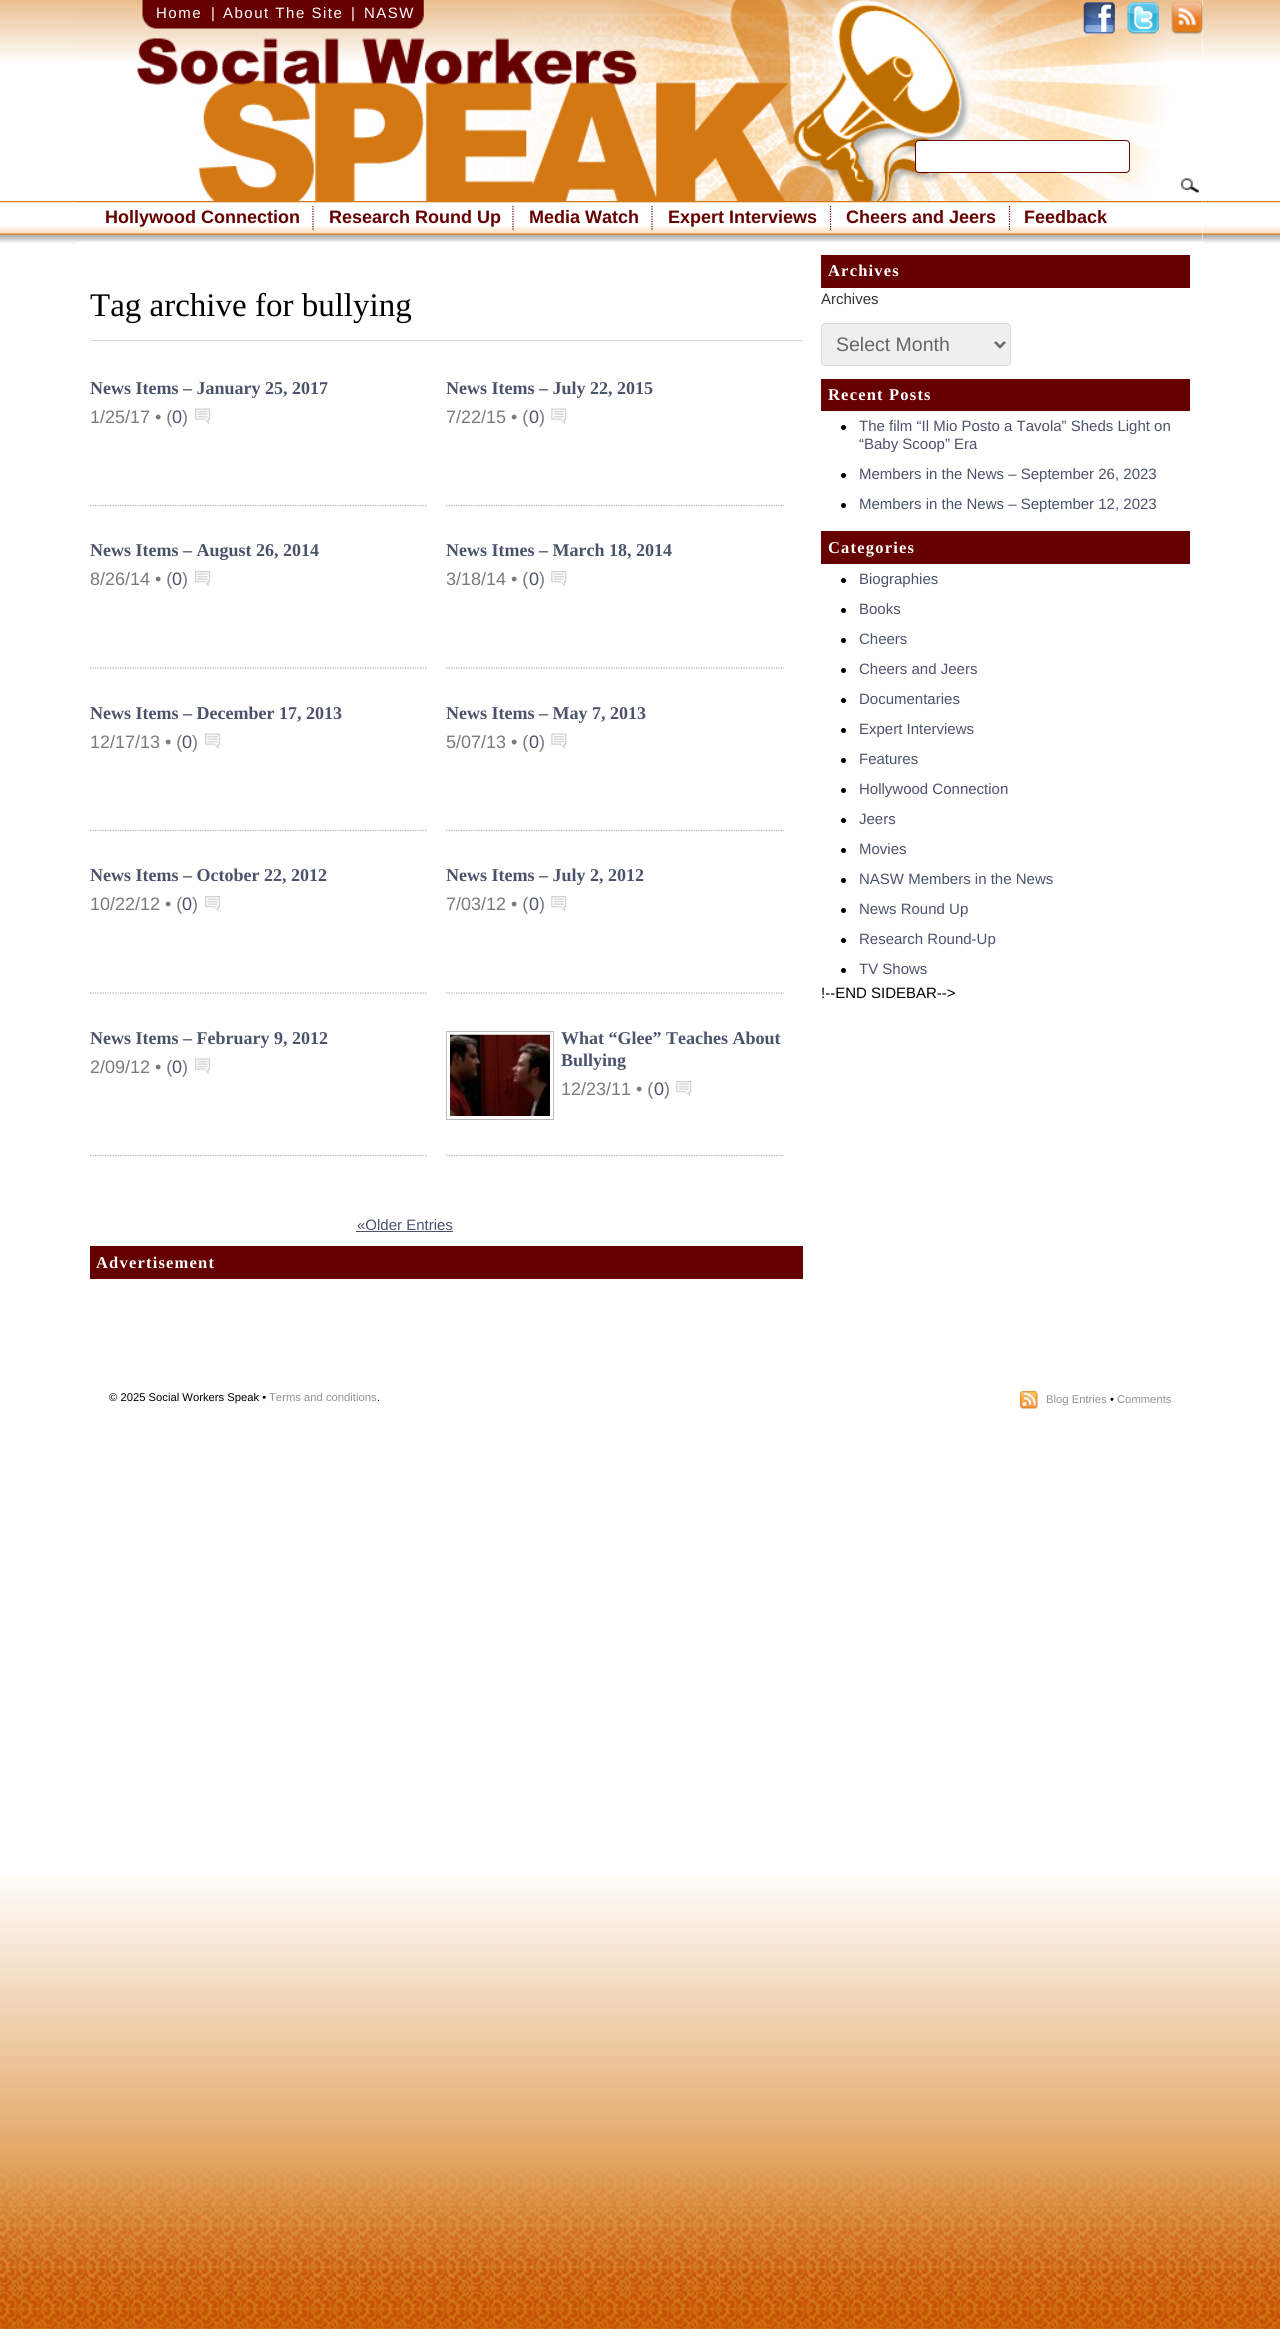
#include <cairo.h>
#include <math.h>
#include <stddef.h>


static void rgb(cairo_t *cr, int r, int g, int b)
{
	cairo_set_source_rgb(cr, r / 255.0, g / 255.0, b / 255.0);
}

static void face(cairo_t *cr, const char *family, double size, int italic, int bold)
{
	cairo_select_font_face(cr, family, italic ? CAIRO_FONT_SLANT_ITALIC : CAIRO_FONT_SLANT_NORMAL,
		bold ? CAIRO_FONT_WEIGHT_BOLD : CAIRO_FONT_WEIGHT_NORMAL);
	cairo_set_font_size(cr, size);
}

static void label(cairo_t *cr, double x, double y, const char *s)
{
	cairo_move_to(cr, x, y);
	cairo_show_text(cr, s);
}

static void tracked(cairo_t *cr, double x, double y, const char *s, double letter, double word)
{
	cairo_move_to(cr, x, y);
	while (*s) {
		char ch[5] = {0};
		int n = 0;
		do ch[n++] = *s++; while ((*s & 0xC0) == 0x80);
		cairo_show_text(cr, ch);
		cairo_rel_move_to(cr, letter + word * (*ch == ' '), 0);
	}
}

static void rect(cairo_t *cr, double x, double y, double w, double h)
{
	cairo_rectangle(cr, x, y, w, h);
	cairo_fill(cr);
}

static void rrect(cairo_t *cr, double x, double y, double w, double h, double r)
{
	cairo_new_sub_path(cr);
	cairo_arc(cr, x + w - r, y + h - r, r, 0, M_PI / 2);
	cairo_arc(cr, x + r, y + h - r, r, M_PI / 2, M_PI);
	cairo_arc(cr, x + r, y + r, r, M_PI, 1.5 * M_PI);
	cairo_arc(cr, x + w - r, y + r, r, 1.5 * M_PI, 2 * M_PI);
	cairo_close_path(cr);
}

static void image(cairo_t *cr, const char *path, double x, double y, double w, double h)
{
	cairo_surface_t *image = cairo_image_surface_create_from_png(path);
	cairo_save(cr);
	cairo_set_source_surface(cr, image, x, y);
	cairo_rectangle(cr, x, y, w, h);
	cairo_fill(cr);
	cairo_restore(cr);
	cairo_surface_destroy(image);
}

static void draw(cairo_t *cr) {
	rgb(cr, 255, 255, 255);
	cairo_paint(cr);
	image(cr, "image0.png", 0, 1875, 1280, 454);
	image(cr, "image1.png", 0, 0, 1280, 244);
	rgb(cr, 255, 255, 255);
	rect(cr, 78, 0, 1125, 244);
	image(cr, "image2.png", 77, 0, 1126, 201);
	face(cr, "Liberation Sans", 15, 0, 0);
	tracked(cr, 156, 18, "Home", 1.5, 0);
	label(cr, 211, 18, "|");
	tracked(cr, 223, 18, "About The Site", 1.5, 0);
	label(cr, 351, 18, "|");
	tracked(cr, 364, 18, "NASW", 1.5, 0);
	image(cr, "image3.png", 1083, 2, 32, 32);
	image(cr, "image4.png", 1127, 2, 32, 32);
	image(cr, "image5.png", 1171, 2, 32, 32);
	rrect(cr, 915.5, 140.5, 214, 32, 3.5);
	cairo_fill_preserve(cr);
	rgb(cr, 102, 0, 0);
	cairo_set_line_width(cr, 1);
	cairo_stroke(cr);
	image(cr, "image6.png", 1181, 178, 18, 15);
	image(cr, "image7.png", 77, 201, 1126, 41);
	cairo_new_path(cr);
	cairo_move_to(cr, 313, 206);
	cairo_line_to(cr, 313, 230);
	cairo_set_line_width(cr, 1.2);
	cairo_set_dash(cr, (double[]){1.25, 1.25}, 2, 0);
	cairo_stroke(cr);
	face(cr, "Liberation Sans", 18, 0, 1);
	label(cr, 105, 223, "Hollywood Connection");
	cairo_new_path(cr);
	cairo_move_to(cr, 513, 206);
	cairo_line_to(cr, 513, 230);
	cairo_stroke(cr);
	label(cr, 329, 223, "Research Round Up");
	cairo_new_path(cr);
	cairo_move_to(cr, 652, 206);
	cairo_line_to(cr, 652, 230);
	cairo_stroke(cr);
	label(cr, 529, 223, "Media Watch");
	cairo_new_path(cr);
	cairo_move_to(cr, 830.5, 206);
	cairo_line_to(cr, 830.5, 230);
	cairo_stroke(cr);
	label(cr, 668, 223, "Expert Interviews");
	cairo_new_path(cr);
	cairo_move_to(cr, 1009.5, 206);
	cairo_line_to(cr, 1009.5, 230);
	cairo_stroke(cr);
	label(cr, 846, 223, "Cheers and Jeers");
	label(cr, 1024, 223, "Feedback");
	rgb(cr, 215, 215, 215);
	rect(cr, 90, 340, 713, 1);
	face(cr, "Liberation Serif", 33, 0, 0);
	rgb(cr, 0, 0, 0);
	label(cr, 90, 316, "Tag archive for bullying");
	cairo_new_path(cr);
	cairo_move_to(cr, 90, 505.5);
	cairo_line_to(cr, 427.5, 505.5);
	rgb(cr, 177, 177, 177);
	cairo_stroke(cr);
	face(cr, "Liberation Serif", 18, 0, 1);
	rgb(cr, 75, 83, 107);
	label(cr, 90, 394, "News Items – January 25, 2017");
	face(cr, "Liberation Sans", 18, 0, 0);
	rgb(cr, 122, 122, 122);
	label(cr, 90, 423, "1/25/17 • (");
	rgb(cr, 75, 83, 107);
	label(cr, 172, 423, "0");
	rgb(cr, 122, 122, 122);
	label(cr, 182, 423, ")");
	image(cr, "image8.png", 195, 408, 16, 16);
	cairo_new_path(cr);
	cairo_move_to(cr, 446, 505.5);
	cairo_line_to(cr, 784, 505.5);
	rgb(cr, 177, 177, 177);
	cairo_stroke(cr);
	face(cr, "Liberation Serif", 18, 0, 1);
	rgb(cr, 75, 83, 107);
	label(cr, 446, 394, "News Items – July 22, 2015");
	face(cr, "Liberation Sans", 18, 0, 0);
	rgb(cr, 122, 122, 122);
	label(cr, 446, 423, "7/22/15 • (");
	rgb(cr, 75, 83, 107);
	label(cr, 529, 423, "0");
	rgb(cr, 122, 122, 122);
	label(cr, 539, 423, ")");
	image(cr, "image9.png", 551, 408, 16, 16);
	cairo_new_path(cr);
	cairo_move_to(cr, 90, 668);
	cairo_line_to(cr, 427.5, 668);
	rgb(cr, 177, 177, 177);
	cairo_stroke(cr);
	face(cr, "Liberation Serif", 18, 0, 1);
	rgb(cr, 75, 83, 107);
	label(cr, 90, 556, "News Items – August 26, 2014");
	face(cr, "Liberation Sans", 18, 0, 0);
	rgb(cr, 122, 122, 122);
	label(cr, 90, 585, "8/26/14 • (");
	rgb(cr, 75, 83, 107);
	label(cr, 172, 585, "0");
	rgb(cr, 122, 122, 122);
	label(cr, 182, 585, ")");
	image(cr, "image10.png", 195, 571, 16, 15);
	cairo_new_path(cr);
	cairo_move_to(cr, 446, 668);
	cairo_line_to(cr, 784, 668);
	rgb(cr, 177, 177, 177);
	cairo_stroke(cr);
	face(cr, "Liberation Serif", 18, 0, 1);
	rgb(cr, 75, 83, 107);
	label(cr, 446, 556, "News Itmes – March 18, 2014");
	face(cr, "Liberation Sans", 18, 0, 0);
	rgb(cr, 122, 122, 122);
	label(cr, 446, 585, "3/18/14 • (");
	rgb(cr, 75, 83, 107);
	label(cr, 529, 585, "0");
	rgb(cr, 122, 122, 122);
	label(cr, 539, 585, ")");
	image(cr, "image11.png", 551, 571, 16, 15);
	cairo_new_path(cr);
	cairo_move_to(cr, 90, 830.5);
	cairo_line_to(cr, 427.5, 830.5);
	rgb(cr, 177, 177, 177);
	cairo_stroke(cr);
	face(cr, "Liberation Serif", 18, 0, 1);
	rgb(cr, 75, 83, 107);
	label(cr, 90, 719, "News Items – December 17, 2013");
	face(cr, "Liberation Sans", 18, 0, 0);
	rgb(cr, 122, 122, 122);
	label(cr, 90, 748, "12/17/13 • (");
	rgb(cr, 75, 83, 107);
	label(cr, 182, 748, "0");
	rgb(cr, 122, 122, 122);
	label(cr, 192, 748, ")");
	image(cr, "image8.png", 205, 733, 16, 16);
	cairo_new_path(cr);
	cairo_move_to(cr, 446, 830.5);
	cairo_line_to(cr, 784, 830.5);
	rgb(cr, 177, 177, 177);
	cairo_stroke(cr);
	face(cr, "Liberation Serif", 18, 0, 1);
	rgb(cr, 75, 83, 107);
	label(cr, 446, 719, "News Items – May 7, 2013");
	face(cr, "Liberation Sans", 18, 0, 0);
	rgb(cr, 122, 122, 122);
	label(cr, 446, 748, "5/07/13 • (");
	rgb(cr, 75, 83, 107);
	label(cr, 529, 748, "0");
	rgb(cr, 122, 122, 122);
	label(cr, 539, 748, ")");
	image(cr, "image9.png", 551, 733, 16, 16);
	cairo_new_path(cr);
	cairo_move_to(cr, 90, 993);
	cairo_line_to(cr, 427.5, 993);
	rgb(cr, 177, 177, 177);
	cairo_stroke(cr);
	face(cr, "Liberation Serif", 18, 0, 1);
	rgb(cr, 75, 83, 107);
	label(cr, 90, 881, "News Items – October 22, 2012");
	face(cr, "Liberation Sans", 18, 0, 0);
	rgb(cr, 122, 122, 122);
	label(cr, 90, 910, "10/22/12 • (");
	rgb(cr, 75, 83, 107);
	label(cr, 182, 910, "0");
	rgb(cr, 122, 122, 122);
	label(cr, 192, 910, ")");
	image(cr, "image10.png", 205, 896, 16, 15);
	cairo_new_path(cr);
	cairo_move_to(cr, 446, 993);
	cairo_line_to(cr, 784, 993);
	rgb(cr, 177, 177, 177);
	cairo_stroke(cr);
	face(cr, "Liberation Serif", 18, 0, 1);
	rgb(cr, 75, 83, 107);
	label(cr, 446, 881, "News Items – July 2, 2012");
	face(cr, "Liberation Sans", 18, 0, 0);
	rgb(cr, 122, 122, 122);
	label(cr, 446, 910, "7/03/12 • (");
	rgb(cr, 75, 83, 107);
	label(cr, 529, 910, "0");
	rgb(cr, 122, 122, 122);
	label(cr, 539, 910, ")");
	image(cr, "image11.png", 551, 896, 16, 15);
	cairo_new_path(cr);
	cairo_move_to(cr, 90, 1155.5);
	cairo_line_to(cr, 427.5, 1155.5);
	rgb(cr, 177, 177, 177);
	cairo_stroke(cr);
	face(cr, "Liberation Serif", 18, 0, 1);
	rgb(cr, 75, 83, 107);
	label(cr, 90, 1044, "News Items – February 9, 2012");
	face(cr, "Liberation Sans", 18, 0, 0);
	rgb(cr, 122, 122, 122);
	label(cr, 90, 1073, "2/09/12 • (");
	rgb(cr, 75, 83, 107);
	label(cr, 172, 1073, "0");
	rgb(cr, 122, 122, 122);
	label(cr, 182, 1073, ")");
	image(cr, "image8.png", 195, 1058, 16, 16);
	cairo_new_path(cr);
	cairo_move_to(cr, 446, 1155.5);
	cairo_line_to(cr, 784, 1155.5);
	rgb(cr, 177, 177, 177);
	cairo_stroke(cr);
	cairo_rectangle(cr, 446.5, 1031.5, 107, 88);
	rgb(cr, 185, 185, 185);
	cairo_set_line_width(cr, 1);
	cairo_set_dash(cr, NULL, 0, 0);
	cairo_stroke(cr);
	image(cr, "image12.png", 450, 1034, 100, 82);
	face(cr, "Liberation Serif", 18, 0, 1);
	rgb(cr, 75, 83, 107);
	label(cr, 561, 1044, "What “Glee” Teaches About");
	label(cr, 561, 1066, "Bullying");
	face(cr, "Liberation Sans", 18, 0, 0);
	rgb(cr, 122, 122, 122);
	label(cr, 561, 1095, "12/23/11 • (");
	rgb(cr, 75, 83, 107);
	label(cr, 654, 1095, "0");
	rgb(cr, 122, 122, 122);
	label(cr, 664, 1095, ")");
	image(cr, "image11.png", 676, 1081, 16, 15);
	face(cr, "Liberation Sans", 15, 0, 0);
	rgb(cr, 75, 83, 107);
	label(cr, 357, 1230, "«Older Entries");
	rect(cr, 356, 1231, 97, 1);
	rgb(cr, 102, 0, 0);
	rect(cr, 90, 1246, 713, 33);
	face(cr, "Liberation Serif", 16.5, 0, 1);
	rgb(cr, 255, 255, 255);
	tracked(cr, 96, 1268, "Advertisement", 1.2, 0);
	rgb(cr, 102, 0, 0);
	rect(cr, 821, 255, 369, 33);
	rgb(cr, 255, 255, 255);
	tracked(cr, 828, 276, "Archives", 1.2, 0);
	face(cr, "Liberation Sans", 15, 0, 0);
	rgb(cr, 51, 51, 51);
	label(cr, 821, 304, "Archives");
	rgb(cr, 239, 239, 239);
	rrect(cr, 821.5, 323.5, 189, 42, 3.5);
	cairo_fill_preserve(cr);
	rgb(cr, 220, 220, 220);
	cairo_stroke(cr);
	cairo_new_path(cr);
	cairo_move_to(cr, 995, 342);
	cairo_line_to(cr, 1000, 347);
	cairo_line_to(cr, 1005, 342);
	rgb(cr, 102, 102, 102);
	cairo_set_line_width(cr, 2.5);
	cairo_stroke(cr);
	face(cr, "Liberation Sans", 19.5, 0, 0);
	label(cr, 836, 351, "Select Month");
	rgb(cr, 102, 0, 0);
	rect(cr, 821, 379, 369, 32);
	face(cr, "Liberation Serif", 16.5, 0, 1);
	rgb(cr, 255, 255, 255);
	tracked(cr, 828, 400, "Recent Posts", 1.2, 0);
	rgb(cr, 0, 0, 0);
	cairo_new_path(cr);
	cairo_arc(cr, 843.5, 427.5, 2.5, 0, 2 * M_PI);
	cairo_fill(cr);
	face(cr, "Liberation Sans", 15, 0, 0);
	rgb(cr, 75, 83, 107);
	label(cr, 859, 431, "The film “Il Mio Posto a Tavola” Sheds Light on");
	label(cr, 859, 449, "“Baby Scoop” Era");
	rgb(cr, 0, 0, 0);
	cairo_new_path(cr);
	cairo_arc(cr, 843.5, 475.5, 2.5, 0, 2 * M_PI);
	cairo_fill(cr);
	rgb(cr, 75, 83, 107);
	label(cr, 859, 479, "Members in the News – September 26, 2023");
	rgb(cr, 0, 0, 0);
	cairo_new_path(cr);
	cairo_arc(cr, 843.5, 505.5, 2.5, 0, 2 * M_PI);
	cairo_fill(cr);
	rgb(cr, 75, 83, 107);
	label(cr, 859, 509, "Members in the News – September 12, 2023");
	rgb(cr, 102, 0, 0);
	rect(cr, 821, 531, 369, 33);
	face(cr, "Liberation Serif", 16.5, 0, 1);
	rgb(cr, 255, 255, 255);
	tracked(cr, 828, 553, "Categories", 1.2, 0);
	rgb(cr, 0, 0, 0);
	cairo_new_path(cr);
	cairo_arc(cr, 843.5, 580.5, 2.5, 0, 2 * M_PI);
	cairo_fill(cr);
	face(cr, "Liberation Sans", 15, 0, 0);
	rgb(cr, 75, 83, 107);
	label(cr, 859, 584, "Biographies");
	rgb(cr, 0, 0, 0);
	cairo_new_path(cr);
	cairo_arc(cr, 843.5, 610.5, 2.5, 0, 2 * M_PI);
	cairo_fill(cr);
	rgb(cr, 75, 83, 107);
	label(cr, 859, 614, "Books");
	rgb(cr, 0, 0, 0);
	cairo_new_path(cr);
	cairo_arc(cr, 843.5, 640.5, 2.5, 0, 2 * M_PI);
	cairo_fill(cr);
	rgb(cr, 75, 83, 107);
	label(cr, 859, 644, "Cheers");
	rgb(cr, 0, 0, 0);
	cairo_new_path(cr);
	cairo_arc(cr, 843.5, 670.5, 2.5, 0, 2 * M_PI);
	cairo_fill(cr);
	rgb(cr, 75, 83, 107);
	label(cr, 859, 674, "Cheers and Jeers");
	rgb(cr, 0, 0, 0);
	cairo_new_path(cr);
	cairo_arc(cr, 843.5, 700.5, 2.5, 0, 2 * M_PI);
	cairo_fill(cr);
	rgb(cr, 75, 83, 107);
	label(cr, 859, 704, "Documentaries");
	rgb(cr, 0, 0, 0);
	cairo_new_path(cr);
	cairo_arc(cr, 843.5, 730.5, 2.5, 0, 2 * M_PI);
	cairo_fill(cr);
	rgb(cr, 75, 83, 107);
	label(cr, 859, 734, "Expert Interviews");
	rgb(cr, 0, 0, 0);
	cairo_new_path(cr);
	cairo_arc(cr, 843.5, 760.5, 2.5, 0, 2 * M_PI);
	cairo_fill(cr);
	rgb(cr, 75, 83, 107);
	label(cr, 859, 764, "Features");
	rgb(cr, 0, 0, 0);
	cairo_new_path(cr);
	cairo_arc(cr, 843.5, 790.5, 2.5, 0, 2 * M_PI);
	cairo_fill(cr);
	rgb(cr, 75, 83, 107);
	label(cr, 859, 794, "Hollywood Connection");
	rgb(cr, 0, 0, 0);
	cairo_new_path(cr);
	cairo_arc(cr, 843.5, 820.5, 2.5, 0, 2 * M_PI);
	cairo_fill(cr);
	rgb(cr, 75, 83, 107);
	label(cr, 859, 824, "Jeers");
	rgb(cr, 0, 0, 0);
	cairo_new_path(cr);
	cairo_arc(cr, 843.5, 850.5, 2.5, 0, 2 * M_PI);
	cairo_fill(cr);
	rgb(cr, 75, 83, 107);
	label(cr, 859, 854, "Movies");
	rgb(cr, 0, 0, 0);
	cairo_new_path(cr);
	cairo_arc(cr, 843.5, 880.5, 2.5, 0, 2 * M_PI);
	cairo_fill(cr);
	rgb(cr, 75, 83, 107);
	label(cr, 859, 884, "NASW Members in the News");
	rgb(cr, 0, 0, 0);
	cairo_new_path(cr);
	cairo_arc(cr, 843.5, 910.5, 2.5, 0, 2 * M_PI);
	cairo_fill(cr);
	rgb(cr, 75, 83, 107);
	label(cr, 859, 914, "News Round Up");
	rgb(cr, 0, 0, 0);
	cairo_new_path(cr);
	cairo_arc(cr, 843.5, 940.5, 2.5, 0, 2 * M_PI);
	cairo_fill(cr);
	rgb(cr, 75, 83, 107);
	label(cr, 859, 944, "Research Round-Up");
	rgb(cr, 0, 0, 0);
	cairo_new_path(cr);
	cairo_arc(cr, 843.5, 970.5, 2.5, 0, 2 * M_PI);
	cairo_fill(cr);
	rgb(cr, 75, 83, 107);
	label(cr, 859, 974, "TV Shows");
	rgb(cr, 0, 0, 0);
	label(cr, 821, 998, "!--END SIDEBAR-->");
	face(cr, "Liberation Sans", 11.25, 0, 0);
	label(cr, 109, 1401, "© 2025 Social Workers Speak •");
	rgb(cr, 148, 146, 139);
	label(cr, 269, 1401, "Terms and conditions");
	rgb(cr, 0, 0, 0);
	label(cr, 377, 1401, ".");
	image(cr, "image13.png", 1020, 1391, 18, 18);
	rgb(cr, 148, 146, 139);
	label(cr, 1046, 1403, "Blog Entries");
	rgb(cr, 0, 0, 0);
	label(cr, 1110, 1403, "•");
	rgb(cr, 148, 146, 139);
	label(cr, 1117, 1403, "Comments");
}

int main(void) {
	cairo_surface_t *surface = cairo_image_surface_create(CAIRO_FORMAT_RGB24, 1280, 2329);
	cairo_t *cr = cairo_create(surface);
	cairo_font_options_t *options = cairo_font_options_create();
	cairo_font_options_set_hint_metrics(options, CAIRO_HINT_METRICS_OFF);
	cairo_font_options_set_hint_style(options, CAIRO_HINT_STYLE_NONE);
	cairo_set_font_options(cr, options);
	cairo_set_miter_limit(cr, 4);
	draw(cr);
	cairo_surface_write_to_png(surface, "render.png");
	cairo_font_options_destroy(options);
	cairo_destroy(cr);
	cairo_surface_destroy(surface);
	return 0;
}
